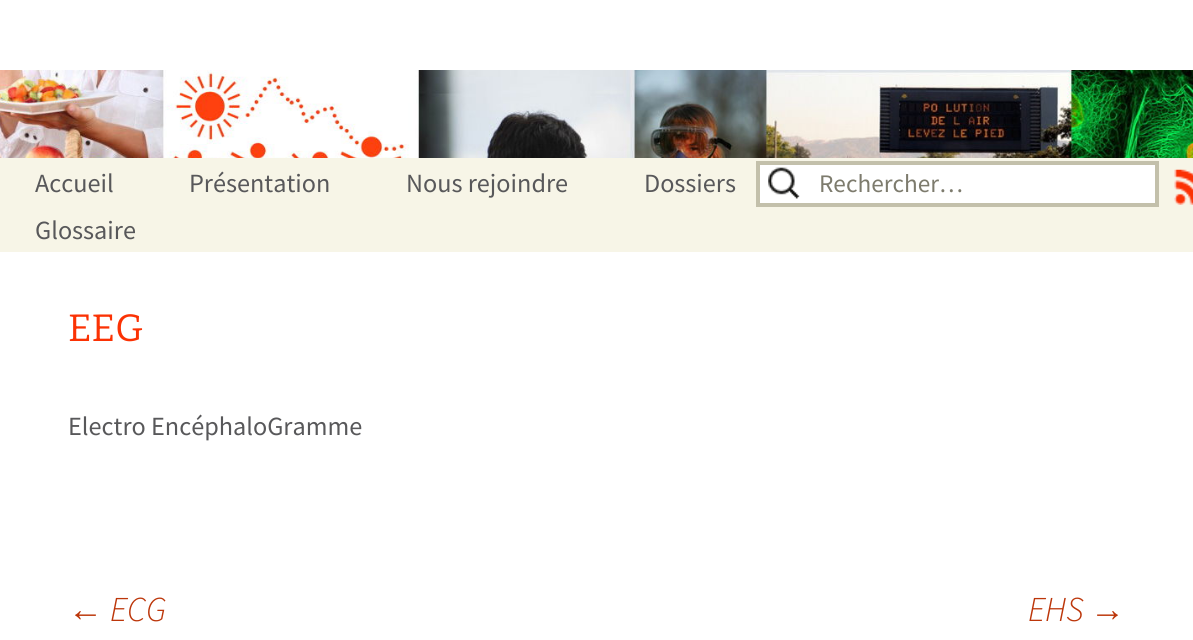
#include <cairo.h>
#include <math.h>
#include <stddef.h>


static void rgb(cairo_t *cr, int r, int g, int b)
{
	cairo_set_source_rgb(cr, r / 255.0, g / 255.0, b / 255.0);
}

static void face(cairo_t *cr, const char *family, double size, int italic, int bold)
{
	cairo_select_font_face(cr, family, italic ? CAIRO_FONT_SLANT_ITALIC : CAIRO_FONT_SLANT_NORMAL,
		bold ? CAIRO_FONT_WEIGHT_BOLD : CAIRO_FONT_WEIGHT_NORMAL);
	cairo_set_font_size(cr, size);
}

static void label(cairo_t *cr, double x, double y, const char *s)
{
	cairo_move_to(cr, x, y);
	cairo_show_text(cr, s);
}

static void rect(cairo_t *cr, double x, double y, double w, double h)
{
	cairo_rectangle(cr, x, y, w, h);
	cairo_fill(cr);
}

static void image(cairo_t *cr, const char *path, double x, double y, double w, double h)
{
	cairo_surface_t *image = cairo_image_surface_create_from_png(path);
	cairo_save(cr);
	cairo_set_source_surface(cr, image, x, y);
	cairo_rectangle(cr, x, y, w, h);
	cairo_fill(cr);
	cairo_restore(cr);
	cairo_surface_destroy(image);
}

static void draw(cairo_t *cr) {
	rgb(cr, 255, 255, 255);
	cairo_paint(cr);
	image(cr, "image0.png", 0, 70, 1193, 88);
	rgb(cr, 247, 245, 231);
	rect(cr, 0, 158, 1193, 94);
	face(cr, "Source Sans Pro", 26.25, 0, 0);
	rgb(cr, 88, 88, 90);
	label(cr, 35, 192, "Accueil");
	label(cr, 189, 192, "Présentation");
	label(cr, 406, 192, "Nous rejoindre");
	label(cr, 644, 192, "Dossiers");
	label(cr, 35, 239, "Glossaire");
	rgb(cr, 255, 255, 255);
	rect(cr, 760, 165, 395, 38);
	image(cr, "image1.png", 768, 167, 32, 32);
	cairo_rectangle(cr, 758, 163, 399, 42);
	rgb(cr, 195, 192, 171);
	cairo_set_line_width(cr, 4);
	cairo_stroke(cr);
	face(cr, "Source Sans Pro", 25.25, 0, 0);
	rgb(cr, 125, 123, 109);
	label(cr, 819, 192, "Rechercher…");
	image(cr, "image2.png", 1174, 169, 19, 36);
	face(cr, "Bitter Thin", 38, 0, 0);
	rgb(cr, 251, 50, 4);
	label(cr, 68, 341, "EEG");
	face(cr, "Source Sans Pro", 26.25, 0, 0);
	rgb(cr, 88, 88, 90);
	label(cr, 68, 435, "Electro EncéphaloGramme");
	face(cr, "Liberation Sans", 35, 1, 0);
	rgb(cr, 188, 54, 10);
	label(cr, 68, 621, "←");
	face(cr, "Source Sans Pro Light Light", 35, 1, 0);
	label(cr, 110, 621, "ECG");
	label(cr, 1028, 621, "EHS");
	face(cr, "Liberation Sans", 35, 1, 0);
	label(cr, 1090, 621, "→");
}

int main(void) {
	cairo_surface_t *surface = cairo_image_surface_create(CAIRO_FORMAT_RGB24, 1193, 640);
	cairo_t *cr = cairo_create(surface);
	cairo_font_options_t *options = cairo_font_options_create();
	cairo_font_options_set_hint_metrics(options, CAIRO_HINT_METRICS_OFF);
	cairo_font_options_set_hint_style(options, CAIRO_HINT_STYLE_NONE);
	cairo_set_font_options(cr, options);
	cairo_set_miter_limit(cr, 4);
	draw(cr);
	cairo_surface_write_to_png(surface, "render.png");
	cairo_font_options_destroy(options);
	cairo_destroy(cr);
	cairo_surface_destroy(surface);
	return 0;
}
